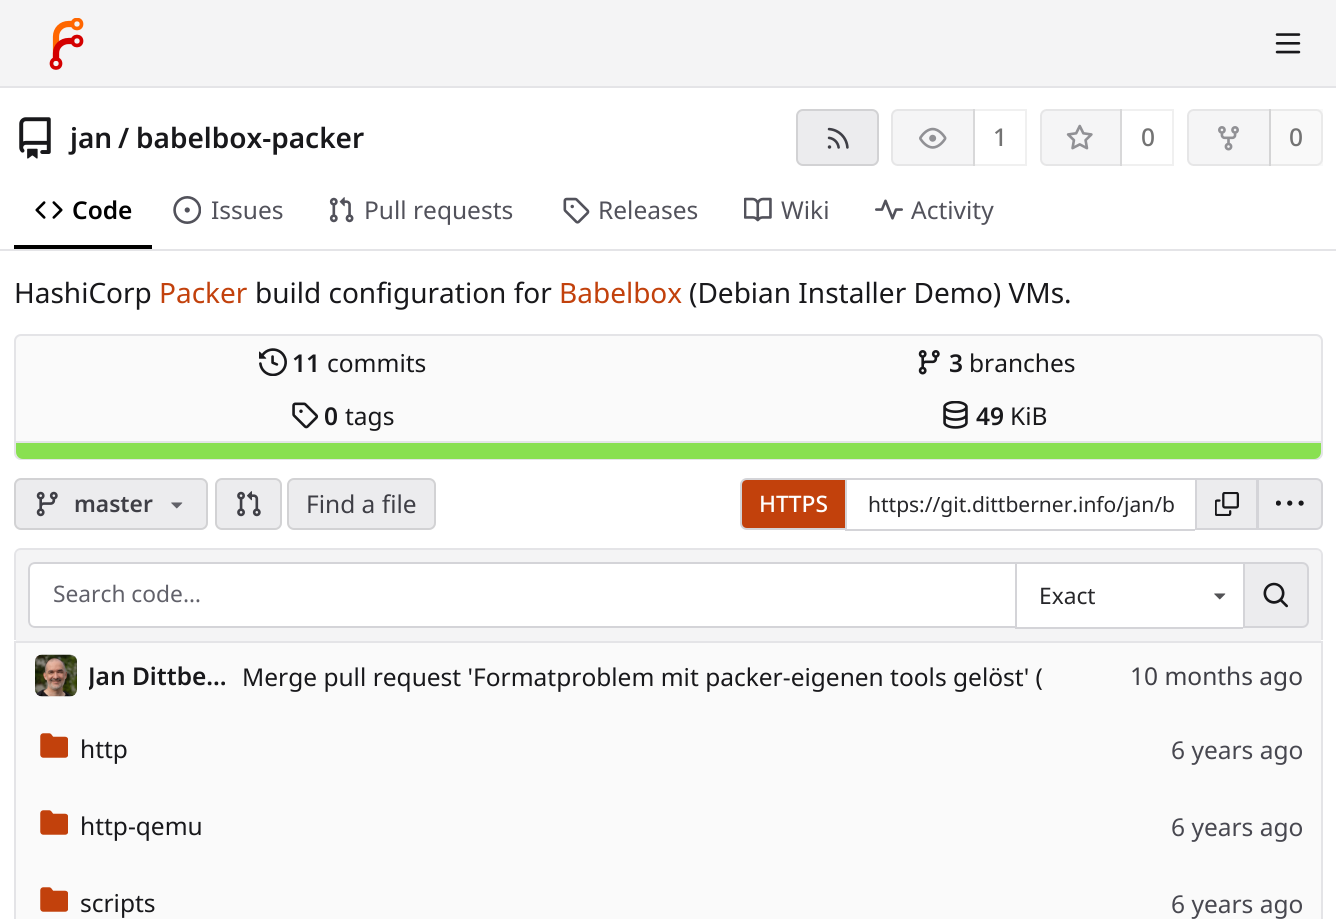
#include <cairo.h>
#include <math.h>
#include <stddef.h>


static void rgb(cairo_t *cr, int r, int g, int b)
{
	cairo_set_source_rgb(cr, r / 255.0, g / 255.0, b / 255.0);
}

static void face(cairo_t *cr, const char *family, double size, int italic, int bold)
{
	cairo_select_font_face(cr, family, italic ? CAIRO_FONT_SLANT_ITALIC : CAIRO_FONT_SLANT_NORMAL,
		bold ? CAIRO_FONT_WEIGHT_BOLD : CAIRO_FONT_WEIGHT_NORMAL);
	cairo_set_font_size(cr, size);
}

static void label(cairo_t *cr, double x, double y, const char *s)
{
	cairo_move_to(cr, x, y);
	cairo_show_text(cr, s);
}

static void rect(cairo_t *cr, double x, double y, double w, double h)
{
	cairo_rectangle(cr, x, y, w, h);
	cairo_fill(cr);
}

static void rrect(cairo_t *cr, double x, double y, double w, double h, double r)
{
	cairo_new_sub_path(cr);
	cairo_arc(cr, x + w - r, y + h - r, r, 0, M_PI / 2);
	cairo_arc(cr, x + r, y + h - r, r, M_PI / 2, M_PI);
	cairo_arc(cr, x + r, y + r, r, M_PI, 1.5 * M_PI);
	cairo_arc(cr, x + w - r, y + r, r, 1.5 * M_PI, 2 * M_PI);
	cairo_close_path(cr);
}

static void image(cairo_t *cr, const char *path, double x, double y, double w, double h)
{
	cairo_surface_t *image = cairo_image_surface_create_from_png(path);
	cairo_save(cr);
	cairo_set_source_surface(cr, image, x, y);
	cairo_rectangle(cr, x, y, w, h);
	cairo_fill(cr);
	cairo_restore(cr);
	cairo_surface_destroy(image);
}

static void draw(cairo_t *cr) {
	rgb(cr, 255, 255, 255);
	cairo_paint(cr);
	rgb(cr, 244, 244, 245);
	rect(cr, 0, 0, 1336, 86);
	rgb(cr, 228, 228, 231);
	rect(cr, 0, 86, 1336, 2);
	cairo_new_path(cr);
	cairo_move_to(cr, 56, 60.5);
	cairo_line_to(cr, 56, 36.5);
	cairo_curve_to(cr, 56, 29.5, 61.5, 24, 68.5, 24);
	cairo_line_to(cr, 73.5, 24);
	rgb(cr, 255, 102, 0);
	cairo_set_line_width(cr, 6.2);
	cairo_stroke(cr);
	cairo_new_path(cr);
	cairo_move_to(cr, 56, 60.5);
	cairo_line_to(cr, 56, 53);
	cairo_curve_to(cr, 56, 46.5, 61.5, 41, 68.5, 41);
	cairo_line_to(cr, 73.5, 41);
	rgb(cr, 212, 0, 0);
	cairo_stroke(cr);
	cairo_save(cr);
	cairo_rectangle(cr, 40, 18, 53, 52);
	cairo_clip(cr);
	cairo_arc(cr, 77, 24, 4.5, 0, 2 * M_PI);
	rgb(cr, 255, 102, 0);
	cairo_set_line_width(cr, 3.7);
	cairo_stroke(cr);
	cairo_restore(cr);
	cairo_arc(cr, 77, 41, 4.5, 0, 2 * M_PI);
	cairo_set_line_width(cr, 3.7);
	cairo_stroke(cr);
	cairo_arc(cr, 56, 63.5, 4.5, 0, 2 * M_PI);
	cairo_stroke(cr);
	image(cr, "image0.png", 1275, 33, 26, 21);
	image(cr, "image1.png", 19, 117, 32, 42);
	face(cr, "Noto Sans SemiBold", 28, 0, 0);
	rgb(cr, 24, 24, 27);
	label(cr, 70, 148, "jan");
	label(cr, 118, 148, "/");
	label(cr, 136, 148, "babelbox-packer");
	rgb(cr, 236, 236, 238);
	rrect(cr, 796, 109, 83, 57, 7);
	cairo_fill(cr);
	rrect(cr, 797, 110, 81, 55, 6);
	cairo_set_source_rgba(cr, 0, 0, 0, 0.11);
	cairo_set_line_width(cr, 2);
	cairo_stroke(cr);
	image(cr, "image2.png", 827, 127, 22, 22);
	rgb(cr, 245, 245, 246);
	cairo_new_path(cr);
	cairo_move_to(cr, 898, 109);
	cairo_line_to(cr, 975, 109);
	cairo_line_to(cr, 975, 166);
	cairo_line_to(cr, 898, 166);
	cairo_curve_to(cr, 894, 166, 891, 163, 891, 159);
	cairo_line_to(cr, 891, 116);
	cairo_curve_to(cr, 891, 112, 894, 109, 898, 109);
	cairo_close_path(cr);
	cairo_fill(cr);
	cairo_new_path(cr);
	cairo_move_to(cr, 898, 110);
	cairo_line_to(cr, 974, 110);
	cairo_line_to(cr, 974, 165);
	cairo_line_to(cr, 898, 165);
	cairo_curve_to(cr, 894.5, 165, 892, 162.5, 892, 159);
	cairo_line_to(cr, 892, 116);
	cairo_curve_to(cr, 892, 112.5, 894.5, 110, 898, 110);
	cairo_close_path(cr);
	cairo_set_source_rgba(cr, 0.451, 0.451, 0.451, 0.11);
	cairo_stroke(cr);
	image(cr, "image3.png", 919, 127, 28, 22);
	cairo_rectangle(cr, 974, 110, 52, 55);
	cairo_set_source_rgba(cr, 0, 0, 0, 0.06);
	cairo_stroke(cr);
	face(cr, "Noto Sans Medium", 24.5, 0, 0);
	rgb(cr, 115, 115, 115);
	label(cr, 993, 146, "1");
	rgb(cr, 245, 245, 246);
	cairo_new_path(cr);
	cairo_move_to(cr, 1047, 109);
	cairo_line_to(cr, 1122, 109);
	cairo_line_to(cr, 1122, 166);
	cairo_line_to(cr, 1047, 166);
	cairo_curve_to(cr, 1043, 166, 1040, 163, 1040, 159);
	cairo_line_to(cr, 1040, 116);
	cairo_curve_to(cr, 1040, 112, 1043, 109, 1047, 109);
	cairo_close_path(cr);
	cairo_fill(cr);
	cairo_new_path(cr);
	cairo_move_to(cr, 1047, 110);
	cairo_line_to(cr, 1121, 110);
	cairo_line_to(cr, 1121, 165);
	cairo_line_to(cr, 1047, 165);
	cairo_curve_to(cr, 1043.5, 165, 1041, 162.5, 1041, 159);
	cairo_line_to(cr, 1041, 116);
	cairo_curve_to(cr, 1041, 112.5, 1043.5, 110, 1047, 110);
	cairo_close_path(cr);
	cairo_set_source_rgba(cr, 0.451, 0.451, 0.451, 0.11);
	cairo_stroke(cr);
	image(cr, "image4.png", 1066, 124, 27, 26);
	cairo_rectangle(cr, 1121, 110, 52, 55);
	cairo_set_source_rgba(cr, 0, 0, 0, 0.06);
	cairo_stroke(cr);
	rgb(cr, 115, 115, 115);
	label(cr, 1141, 146, "0");
	rgb(cr, 245, 245, 246);
	cairo_new_path(cr);
	cairo_move_to(cr, 1194, 109);
	cairo_line_to(cr, 1271, 109);
	cairo_line_to(cr, 1271, 166);
	cairo_line_to(cr, 1194, 166);
	cairo_curve_to(cr, 1190, 166, 1187, 163, 1187, 159);
	cairo_line_to(cr, 1187, 116);
	cairo_curve_to(cr, 1187, 112, 1190, 109, 1194, 109);
	cairo_close_path(cr);
	cairo_fill(cr);
	cairo_new_path(cr);
	cairo_move_to(cr, 1194, 110);
	cairo_line_to(cr, 1270, 110);
	cairo_line_to(cr, 1270, 165);
	cairo_line_to(cr, 1194, 165);
	cairo_curve_to(cr, 1190.5, 165, 1188, 162.5, 1188, 159);
	cairo_line_to(cr, 1188, 116);
	cairo_curve_to(cr, 1188, 112.5, 1190.5, 110, 1194, 110);
	cairo_close_path(cr);
	cairo_set_source_rgba(cr, 0.451, 0.451, 0.451, 0.11);
	cairo_stroke(cr);
	image(cr, "image5.png", 1218, 126, 21, 25);
	cairo_set_source_rgba(cr, 0.451, 0.451, 0.451, 0.04);
	rect(cr, 1269, 109, 54, 57);
	cairo_new_path(cr);
	cairo_move_to(cr, 1270, 110);
	cairo_line_to(cr, 1316, 110);
	cairo_curve_to(cr, 1319.5, 110, 1322, 112.5, 1322, 116);
	cairo_line_to(cr, 1322, 159);
	cairo_curve_to(cr, 1322, 162.5, 1319.5, 165, 1316, 165);
	cairo_line_to(cr, 1270, 165);
	cairo_close_path(cr);
	cairo_set_source_rgba(cr, 0.451, 0.451, 0.451, 0.11);
	cairo_stroke(cr);
	rgb(cr, 115, 115, 115);
	label(cr, 1289, 146, "0");
	rgb(cr, 0, 0, 0);
	rect(cr, 14, 245, 138, 4);
	image(cr, "image6.png", 35, 201, 28, 18);
	face(cr, "Noto Sans SemiBold", 24.5, 0, 0);
	label(cr, 72, 219, "Code");
	image(cr, "image7.png", 173, 196, 28, 28);
	face(cr, "Noto Sans", 24.5, 0, 0);
	rgb(cr, 82, 82, 91);
	label(cr, 211, 219, "Issues");
	image(cr, "image8.png", 329, 197, 25, 26);
	label(cr, 364, 219, "Pull requests");
	image(cr, "image9.png", 563, 197, 27, 27);
	label(cr, 598, 219, "Releases");
	image(cr, "image10.png", 744, 197, 28, 25);
	label(cr, 781, 219, "Wiki");
	image(cr, "image11.png", 875, 199, 28, 21);
	label(cr, 911, 219, "Activity");
	rgb(cr, 228, 228, 231);
	rect(cr, 0, 249, 1336, 2);
	face(cr, "Noto Sans", 28, 0, 0);
	rgb(cr, 24, 24, 27);
	label(cr, 14, 303, "HashiCorp");
	rgb(cr, 194, 65, 12);
	label(cr, 159, 303, "Packer");
	rgb(cr, 24, 24, 27);
	label(cr, 255, 303, "build configuration for");
	rgb(cr, 194, 65, 12);
	label(cr, 559, 303, "Babelbox");
	rgb(cr, 24, 24, 27);
	label(cr, 689, 303, "(Debian Installer Demo) VMs.");
	rgb(cr, 250, 250, 250);
	rrect(cr, 15, 335, 1307, 124, 6);
	cairo_fill_preserve(cr);
	rgb(cr, 228, 228, 231);
	cairo_stroke(cr);
	image(cr, "image12.png", 259, 348, 28, 28);
	face(cr, "Noto Sans SemiBold", 24.5, 0, 0);
	rgb(cr, 24, 24, 27);
	label(cr, 292, 372, "11");
	face(cr, "Noto Sans", 24.5, 0, 0);
	label(cr, 327, 372, "commits");
	image(cr, "image13.png", 918, 350, 22, 25);
	face(cr, "Noto Sans SemiBold", 24.5, 0, 0);
	label(cr, 949, 372, "3");
	face(cr, "Noto Sans", 24.5, 0, 0);
	label(cr, 969, 372, "branches");
	image(cr, "image14.png", 292, 402, 27, 27);
	face(cr, "Noto Sans SemiBold", 24.5, 0, 0);
	label(cr, 324, 425, "0");
	face(cr, "Noto Sans", 24.5, 0, 0);
	label(cr, 345, 425, "tags");
	image(cr, "image15.png", 943, 401, 25, 28);
	face(cr, "Noto Sans SemiBold", 24.5, 0, 0);
	label(cr, 976, 425, "49");
	face(cr, "Noto Sans", 24.5, 0, 0);
	label(cr, 1010, 425, "KiB");
	rgb(cr, 228, 228, 231);
	rect(cr, 16, 441, 1305, 2);
	rgb(cr, 137, 224, 81);
	cairo_new_path(cr);
	cairo_move_to(cr, 16, 443);
	cairo_line_to(cr, 1321, 443);
	cairo_line_to(cr, 1321, 452);
	cairo_curve_to(cr, 1321, 456, 1318, 459, 1314, 459);
	cairo_line_to(cr, 23, 459);
	cairo_curve_to(cr, 19, 459, 16, 456, 16, 452);
	cairo_close_path(cr);
	cairo_fill(cr);
	rgb(cr, 236, 236, 238);
	rrect(cr, 14, 478, 194, 52, 7);
	cairo_fill(cr);
	rrect(cr, 15, 479, 192, 50, 6);
	cairo_set_source_rgba(cr, 0, 0, 0, 0.11);
	cairo_stroke(cr);
	image(cr, "image16.png", 36, 491, 22, 26);
	face(cr, "Noto Sans SemiBold", 22.75, 0, 0);
	rgb(cr, 63, 63, 70);
	label(cr, 74, 512, "master");
	image(cr, "image17.png", 171, 502, 12, 7);
	rgb(cr, 236, 236, 238);
	rrect(cr, 215, 478, 67, 52, 7);
	cairo_fill(cr);
	rrect(cr, 216, 479, 65, 50, 6);
	cairo_set_source_rgba(cr, 0, 0, 0, 0.11);
	cairo_stroke(cr);
	image(cr, "image18.png", 237, 491, 24, 26);
	rgb(cr, 236, 236, 238);
	rrect(cr, 287, 478, 149, 52, 7);
	cairo_fill(cr);
	rrect(cr, 288, 479, 147, 50, 6);
	cairo_set_source_rgba(cr, 0, 0, 0, 0.11);
	cairo_stroke(cr);
	face(cr, "Noto Sans", 24.5, 0, 0);
	rgb(cr, 63, 63, 70);
	label(cr, 306, 513, "Find a file");
	rgb(cr, 194, 65, 12);
	cairo_new_path(cr);
	cairo_move_to(cr, 747, 479);
	cairo_line_to(cr, 846, 479);
	cairo_line_to(cr, 846, 529);
	cairo_line_to(cr, 747, 529);
	cairo_curve_to(cr, 743.5, 529, 741, 526.5, 741, 523);
	cairo_line_to(cr, 741, 485);
	cairo_curve_to(cr, 741, 481.5, 743.5, 479, 747, 479);
	cairo_close_path(cr);
	cairo_fill_preserve(cr);
	rgb(cr, 212, 212, 216);
	cairo_stroke(cr);
	face(cr, "Noto Sans Medium", 22.75, 0, 0);
	rgb(cr, 255, 255, 255);
	label(cr, 759, 512, "HTTPS");
	rgb(cr, 212, 212, 216);
	rect(cr, 845, 478, 350, 2);
	rect(cr, 845, 529, 350, 2);
	face(cr, "Noto Sans", 21, 0, 0);
	rgb(cr, 39, 39, 42);
	label(cr, 868, 512, "https://git.dittberner.info/jan/b");
	rgb(cr, 236, 236, 238);
	cairo_rectangle(cr, 1196, 479, 61, 50);
	cairo_fill_preserve(cr);
	rgb(cr, 212, 212, 216);
	cairo_stroke(cr);
	image(cr, "image19.png", 1215, 492, 24, 24);
	rgb(cr, 236, 236, 238);
	cairo_new_path(cr);
	cairo_move_to(cr, 1258, 479);
	cairo_line_to(cr, 1316, 479);
	cairo_curve_to(cr, 1319.5, 479, 1322, 481.5, 1322, 485);
	cairo_line_to(cr, 1322, 523);
	cairo_curve_to(cr, 1322, 526.5, 1319.5, 529, 1316, 529);
	cairo_line_to(cr, 1258, 529);
	cairo_close_path(cr);
	cairo_fill_preserve(cr);
	rgb(cr, 212, 212, 216);
	cairo_stroke(cr);
	image(cr, "image20.png", 1276, 500, 28, 6);
	rgb(cr, 244, 244, 245);
	cairo_new_path(cr);
	cairo_move_to(cr, 21, 550);
	cairo_line_to(cr, 1316, 550);
	cairo_curve_to(cr, 1319, 550, 1321, 552, 1321, 555);
	cairo_line_to(cr, 1321, 641);
	cairo_line_to(cr, 16, 641);
	cairo_line_to(cr, 16, 555);
	cairo_curve_to(cr, 16, 552, 18, 550, 21, 550);
	cairo_close_path(cr);
	cairo_fill(cr);
	rgb(cr, 228, 228, 231);
	cairo_set_fill_rule(cr, CAIRO_FILL_RULE_EVEN_ODD);
	cairo_new_path(cr);
	cairo_move_to(cr, 21, 548);
	cairo_line_to(cr, 1316, 548);
	cairo_curve_to(cr, 1320, 548, 1323, 551, 1323, 555);
	cairo_line_to(cr, 1323, 640);
	cairo_line_to(cr, 14, 640);
	cairo_line_to(cr, 14, 555);
	cairo_curve_to(cr, 14, 551, 17, 548, 21, 548);
	cairo_close_path(cr);
	cairo_move_to(cr, 21, 550);
	cairo_line_to(cr, 1316, 550);
	cairo_curve_to(cr, 1319, 550, 1321, 552, 1321, 555);
	cairo_line_to(cr, 1321, 640);
	cairo_line_to(cr, 16, 640);
	cairo_line_to(cr, 16, 555);
	cairo_curve_to(cr, 16, 552, 18, 550, 21, 550);
	cairo_close_path(cr);
	cairo_fill(cr);
	rgb(cr, 255, 255, 255);
	cairo_new_path(cr);
	cairo_move_to(cr, 35, 562);
	cairo_line_to(cr, 1015, 562);
	cairo_line_to(cr, 1015, 628);
	cairo_line_to(cr, 35, 628);
	cairo_curve_to(cr, 31, 628, 28, 625, 28, 621);
	cairo_line_to(cr, 28, 569);
	cairo_curve_to(cr, 28, 565, 31, 562, 35, 562);
	cairo_close_path(cr);
	cairo_fill(cr);
	rgb(cr, 212, 212, 216);
	cairo_new_path(cr);
	cairo_move_to(cr, 35, 562);
	cairo_line_to(cr, 1015, 562);
	cairo_line_to(cr, 1015, 628);
	cairo_line_to(cr, 35, 628);
	cairo_curve_to(cr, 31, 628, 28, 625, 28, 621);
	cairo_line_to(cr, 28, 569);
	cairo_curve_to(cr, 28, 565, 31, 562, 35, 562);
	cairo_close_path(cr);
	cairo_move_to(cr, 35, 564);
	cairo_line_to(cr, 1015, 564);
	cairo_line_to(cr, 1015, 626);
	cairo_line_to(cr, 35, 626);
	cairo_curve_to(cr, 32, 626, 30, 624, 30, 621);
	cairo_line_to(cr, 30, 569);
	cairo_curve_to(cr, 30, 566, 32, 564, 35, 564);
	cairo_close_path(cr);
	cairo_fill(cr);
	face(cr, "Noto Sans", 22.75, 0, 0);
	rgb(cr, 97, 97, 106);
	label(cr, 53, 602, "Search code…");
	rgb(cr, 255, 255, 255);
	rect(cr, 1017, 564, 226, 63);
	rgb(cr, 212, 212, 216);
	rect(cr, 1015, 562, 228, 2);
	rect(cr, 1015, 627, 228, 2);
	rect(cr, 1015, 562, 2, 66);
	rgb(cr, 39, 39, 42);
	label(cr, 1039, 604, "Exact");
	image(cr, "image21.png", 1214, 593, 12, 7);
	rgb(cr, 236, 236, 238);
	cairo_new_path(cr);
	cairo_move_to(cr, 1244, 563);
	cairo_line_to(cr, 1302, 563);
	cairo_curve_to(cr, 1305.5, 563, 1308, 565.5, 1308, 569);
	cairo_line_to(cr, 1308, 621);
	cairo_curve_to(cr, 1308, 624.5, 1305.5, 627, 1302, 627);
	cairo_line_to(cr, 1244, 627);
	cairo_close_path(cr);
	cairo_fill_preserve(cr);
	rgb(cr, 212, 212, 216);
	cairo_stroke(cr);
	image(cr, "image22.png", 1263, 582, 25, 26);
	rgb(cr, 250, 250, 250);
	cairo_rectangle(cr, 15, 642, 1307, 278);
	cairo_fill_preserve(cr);
	rgb(cr, 228, 228, 231);
	cairo_stroke(cr);
	image(cr, "image23.png", 35, 654, 42, 43);
	cairo_save(cr);
	cairo_set_fill_rule(cr, CAIRO_FILL_RULE_WINDING);
	cairo_rectangle(cr, 89, 658, 140, 35);
	cairo_clip(cr);
	face(cr, "Noto Sans SemiBold", 24.5, 0, 0);
	rgb(cr, 24, 24, 27);
	label(cr, 88, 685, "Jan Dittbe…");
	cairo_restore(cr);
	face(cr, "Noto Sans", 24.5, 0, 0);
	rgb(cr, 24, 24, 27);
	label(cr, 242, 686, "Merge pull request 'Formatproblem mit packer-eigenen tools gelöst' (");
	rgb(cr, 63, 63, 70);
	label(cr, 1130, 685, "10 months ago");
	image(cr, "image24.png", 40, 733, 28, 25);
	rgb(cr, 24, 24, 27);
	label(cr, 80, 758, "http");
	rgb(cr, 72, 72, 80);
	label(cr, 1171, 759, "6 years ago");
	image(cr, "image24.png", 40, 810, 28, 25);
	rgb(cr, 24, 24, 27);
	label(cr, 80, 835, "http-qemu");
	rgb(cr, 72, 72, 80);
	label(cr, 1171, 836, "6 years ago");
	image(cr, "image24.png", 40, 887, 28, 25);
	rgb(cr, 24, 24, 27);
	label(cr, 80, 912, "scripts");
	rgb(cr, 72, 72, 80);
	label(cr, 1171, 913, "6 years ago");
}

int main(void) {
	cairo_surface_t *surface = cairo_image_surface_create(CAIRO_FORMAT_RGB24, 1336, 919);
	cairo_t *cr = cairo_create(surface);
	cairo_font_options_t *options = cairo_font_options_create();
	cairo_font_options_set_hint_metrics(options, CAIRO_HINT_METRICS_OFF);
	cairo_font_options_set_hint_style(options, CAIRO_HINT_STYLE_NONE);
	cairo_set_font_options(cr, options);
	cairo_set_miter_limit(cr, 4);
	draw(cr);
	cairo_surface_write_to_png(surface, "render.png");
	cairo_font_options_destroy(options);
	cairo_destroy(cr);
	cairo_surface_destroy(surface);
	return 0;
}
